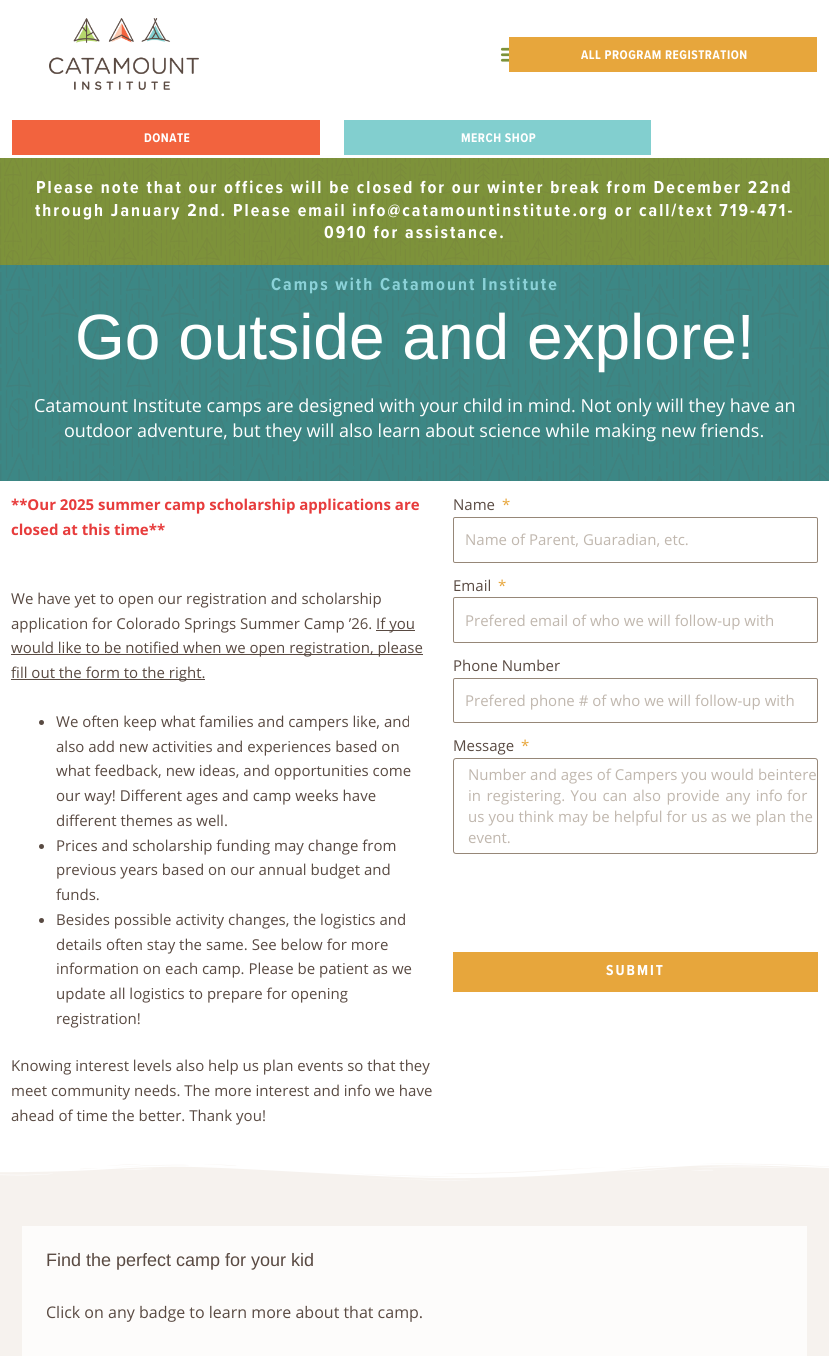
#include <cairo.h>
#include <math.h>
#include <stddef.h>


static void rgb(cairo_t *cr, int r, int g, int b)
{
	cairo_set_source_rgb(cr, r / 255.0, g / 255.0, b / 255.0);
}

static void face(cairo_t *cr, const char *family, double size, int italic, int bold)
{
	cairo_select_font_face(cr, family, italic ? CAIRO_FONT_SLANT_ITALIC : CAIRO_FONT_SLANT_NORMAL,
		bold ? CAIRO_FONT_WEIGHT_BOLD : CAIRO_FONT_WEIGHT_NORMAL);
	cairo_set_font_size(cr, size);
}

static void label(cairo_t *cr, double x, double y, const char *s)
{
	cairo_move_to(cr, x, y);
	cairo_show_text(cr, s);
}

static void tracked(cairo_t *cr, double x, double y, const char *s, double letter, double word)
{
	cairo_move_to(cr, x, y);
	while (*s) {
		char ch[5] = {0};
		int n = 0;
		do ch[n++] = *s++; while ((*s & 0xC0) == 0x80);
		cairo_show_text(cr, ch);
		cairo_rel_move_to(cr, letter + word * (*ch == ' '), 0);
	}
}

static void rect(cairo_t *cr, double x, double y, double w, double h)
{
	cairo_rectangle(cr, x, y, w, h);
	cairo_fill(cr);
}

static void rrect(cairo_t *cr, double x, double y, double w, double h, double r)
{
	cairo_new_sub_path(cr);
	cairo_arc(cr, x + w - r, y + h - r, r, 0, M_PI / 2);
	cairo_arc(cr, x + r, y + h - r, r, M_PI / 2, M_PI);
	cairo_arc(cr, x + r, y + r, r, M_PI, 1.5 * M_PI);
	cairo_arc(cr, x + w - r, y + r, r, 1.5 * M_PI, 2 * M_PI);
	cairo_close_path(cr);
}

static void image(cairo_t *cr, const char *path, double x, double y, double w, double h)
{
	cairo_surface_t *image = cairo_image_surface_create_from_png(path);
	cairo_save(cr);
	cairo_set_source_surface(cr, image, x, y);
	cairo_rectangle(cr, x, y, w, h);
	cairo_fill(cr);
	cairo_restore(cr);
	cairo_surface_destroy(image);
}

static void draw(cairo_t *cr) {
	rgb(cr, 255, 255, 255);
	cairo_paint(cr);
	image(cr, "image0.png", 49, 18, 150, 72);
	image(cr, "image1.png", 500, 47, 9, 15);
	rgb(cr, 231, 166, 60);
	rect(cr, 509, 37, 308, 35);
	face(cr, "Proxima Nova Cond", 13, 0, 1);
	rgb(cr, 255, 255, 255);
	tracked(cr, 581, 59, "ALL PROGRAM REGISTRATION", 0.5, 0);
	rgb(cr, 242, 99, 62);
	rect(cr, 12, 120, 308, 35);
	rgb(cr, 255, 255, 255);
	tracked(cr, 144, 142, "DONATE", 0.5, 0);
	rgb(cr, 130, 207, 207);
	rect(cr, 344, 120, 307, 35);
	rgb(cr, 255, 255, 255);
	tracked(cr, 461, 142, "MERCH SHOP", 0.5, 0);
	rgb(cr, 125, 146, 58);
	rect(cr, 0, 158, 829, 107);
	image(cr, "image2.png", 0, 158, 825, 107);
	face(cr, "Proxima Nova Cond", 18, 0, 1);
	rgb(cr, 255, 255, 255);
	tracked(cr, 36, 193, "Please note that our offices will be closed for our winter break from December 22nd", 2, 0);
	tracked(cr, 35, 216, "through January 2nd. Please email info@catamountinstitute.org or call/text 719-471-", 2, 0);
	tracked(cr, 324, 238, "0910 for assistance.", 2, 0);
	rgb(cr, 60, 135, 133);
	rect(cr, 0, 265, 829, 216);
	image(cr, "image3.png", 0, 265, 829, 216);
	rgb(cr, 139, 210, 216);
	tracked(cr, 271, 290, "Camps with Catamount Institute", 2, 0);
	face(cr, "Liberation Sans", 64, 0, 0);
	rgb(cr, 255, 255, 255);
	label(cr, 75, 359, "Go outside and explore!");
	face(cr, "Open Sans", 18, 0, 0);
	label(cr, 34, 412, "Catamount Institute camps are designed with your child in mind. Not only will they have an");
	label(cr, 64, 437, "outdoor adventure, but they will also learn about science while making new friends.");
	face(cr, "Open Sans", 15, 0, 1);
	rgb(cr, 231, 60, 60);
	label(cr, 11, 510, "**Our 2025 summer camp scholarship applications are");
	label(cr, 11, 535, "closed at this time**");
	face(cr, "Open Sans", 15, 0, 0);
	rgb(cr, 89, 74, 66);
	label(cr, 11, 604, "We have yet to open our registration and scholarship");
	label(cr, 11, 629, "application for Colorado Springs Summer Camp ’26.");
	rect(cr, 376, 630, 39, 1);
	label(cr, 376, 629, "If you");
	rect(cr, 11, 654, 412, 1);
	label(cr, 11, 653, "would like to be notified when we open registration, please");
	rect(cr, 11, 679, 194, 1);
	label(cr, 11, 678, "fill out the form to the right.");
	cairo_new_path(cr);
	cairo_arc(cr, 41.5, 722.5, 2.5, 0, 2 * M_PI);
	cairo_fill(cr);
	label(cr, 56, 727, "We often keep what families and campers like, and");
	label(cr, 56, 752, "also add new activities and experiences based on");
	label(cr, 56, 776, "what feedback, new ideas, and opportunities come");
	label(cr, 56, 801, "our way! Different ages and camp weeks have");
	label(cr, 56, 826, "different themes as well.");
	cairo_new_path(cr);
	cairo_arc(cr, 41.5, 846.5, 2.5, 0, 2 * M_PI);
	cairo_fill(cr);
	label(cr, 56, 851, "Prices and scholarship funding may change from");
	label(cr, 56, 875, "previous years based on our annual budget and");
	label(cr, 56, 900, "funds.");
	cairo_new_path(cr);
	cairo_arc(cr, 41.5, 920.5, 2.5, 0, 2 * M_PI);
	cairo_fill(cr);
	label(cr, 56, 925, "Besides possible activity changes, the logistics and");
	label(cr, 56, 950, "details often stay the same. See below for more");
	label(cr, 56, 974, "information on each camp. Please be patient as we");
	label(cr, 56, 999, "update all logistics to prepare for opening");
	label(cr, 56, 1024, "registration!");
	label(cr, 11, 1071, "Knowing interest levels also help us plan events so that they");
	label(cr, 11, 1096, "meet community needs. The more interest and info we have");
	label(cr, 11, 1121, "ahead of time the better. Thank you!");
	label(cr, 453, 510, "Name");
	rgb(cr, 231, 166, 60);
	label(cr, 502, 510, "*");
	rrect(cr, 453.5, 517.5, 364, 45, 1.5);
	rgb(cr, 150, 135, 120);
	cairo_set_line_width(cr, 1);
	cairo_stroke(cr);
	rgb(cr, 192, 183, 174);
	label(cr, 465, 545, "Name of Parent, Guaradian, etc.");
	rgb(cr, 89, 74, 66);
	label(cr, 453, 591, "Email");
	rgb(cr, 231, 166, 60);
	label(cr, 498, 591, "*");
	rrect(cr, 453.5, 597.5, 364, 45, 1.5);
	rgb(cr, 150, 135, 120);
	cairo_stroke(cr);
	rgb(cr, 192, 183, 174);
	label(cr, 465, 626, "Prefered email of who we will follow-up with");
	rgb(cr, 89, 74, 66);
	label(cr, 453, 671, "Phone Number");
	rrect(cr, 453.5, 678.5, 364, 44, 1.5);
	rgb(cr, 150, 135, 120);
	cairo_stroke(cr);
	rgb(cr, 192, 183, 174);
	label(cr, 465, 706, "Prefered phone # of who we will follow-up with");
	rgb(cr, 89, 74, 66);
	label(cr, 453, 751, "Message");
	rgb(cr, 231, 166, 60);
	label(cr, 521, 751, "*");
	rrect(cr, 453.5, 758.5, 364, 95, 2.5);
	rgb(cr, 150, 135, 120);
	cairo_stroke(cr);
	rgb(cr, 192, 183, 174);
	label(cr, 468, 780, "Number and ages of Campers you would beintere");
	tracked(cr, 468, 801, "in registering. You can also provide any info", 0, 1.5);
	label(cr, 787, 801, "for");
	tracked(cr, 468, 822, "us you think may be helpful for us as we plan", 0, 0.25);
	label(cr, 790, 822, "the");
	label(cr, 468, 843, "event.");
	rgb(cr, 231, 166, 60);
	rect(cr, 453, 952, 365, 40);
	face(cr, "Proxima Nova Cond", 15, 0, 1);
	rgb(cr, 255, 255, 255);
	tracked(cr, 606, 975, "SUBMIT", 2, 0);
	rgb(cr, 246, 242, 238);
	rect(cr, 0, 1163, 829, 193);
	image(cr, "image4.png", 0, 1162, 829, 19);
	rgb(cr, 253, 252, 251);
	rect(cr, 22, 1226, 785, 130);
	face(cr, "Liberation Sans", 18, 0, 0);
	rgb(cr, 89, 74, 66);
	label(cr, 46, 1266, "Find the perfect camp for your kid");
	face(cr, "Open Sans", 16, 0, 0);
	label(cr, 46, 1318, "Click on any badge to learn more about that camp.");
}

int main(void) {
	cairo_surface_t *surface = cairo_image_surface_create(CAIRO_FORMAT_RGB24, 829, 1356);
	cairo_t *cr = cairo_create(surface);
	cairo_font_options_t *options = cairo_font_options_create();
	cairo_font_options_set_hint_metrics(options, CAIRO_HINT_METRICS_OFF);
	cairo_font_options_set_hint_style(options, CAIRO_HINT_STYLE_NONE);
	cairo_set_font_options(cr, options);
	cairo_set_miter_limit(cr, 4);
	draw(cr);
	cairo_surface_write_to_png(surface, "render.png");
	cairo_font_options_destroy(options);
	cairo_destroy(cr);
	cairo_surface_destroy(surface);
	return 0;
}
